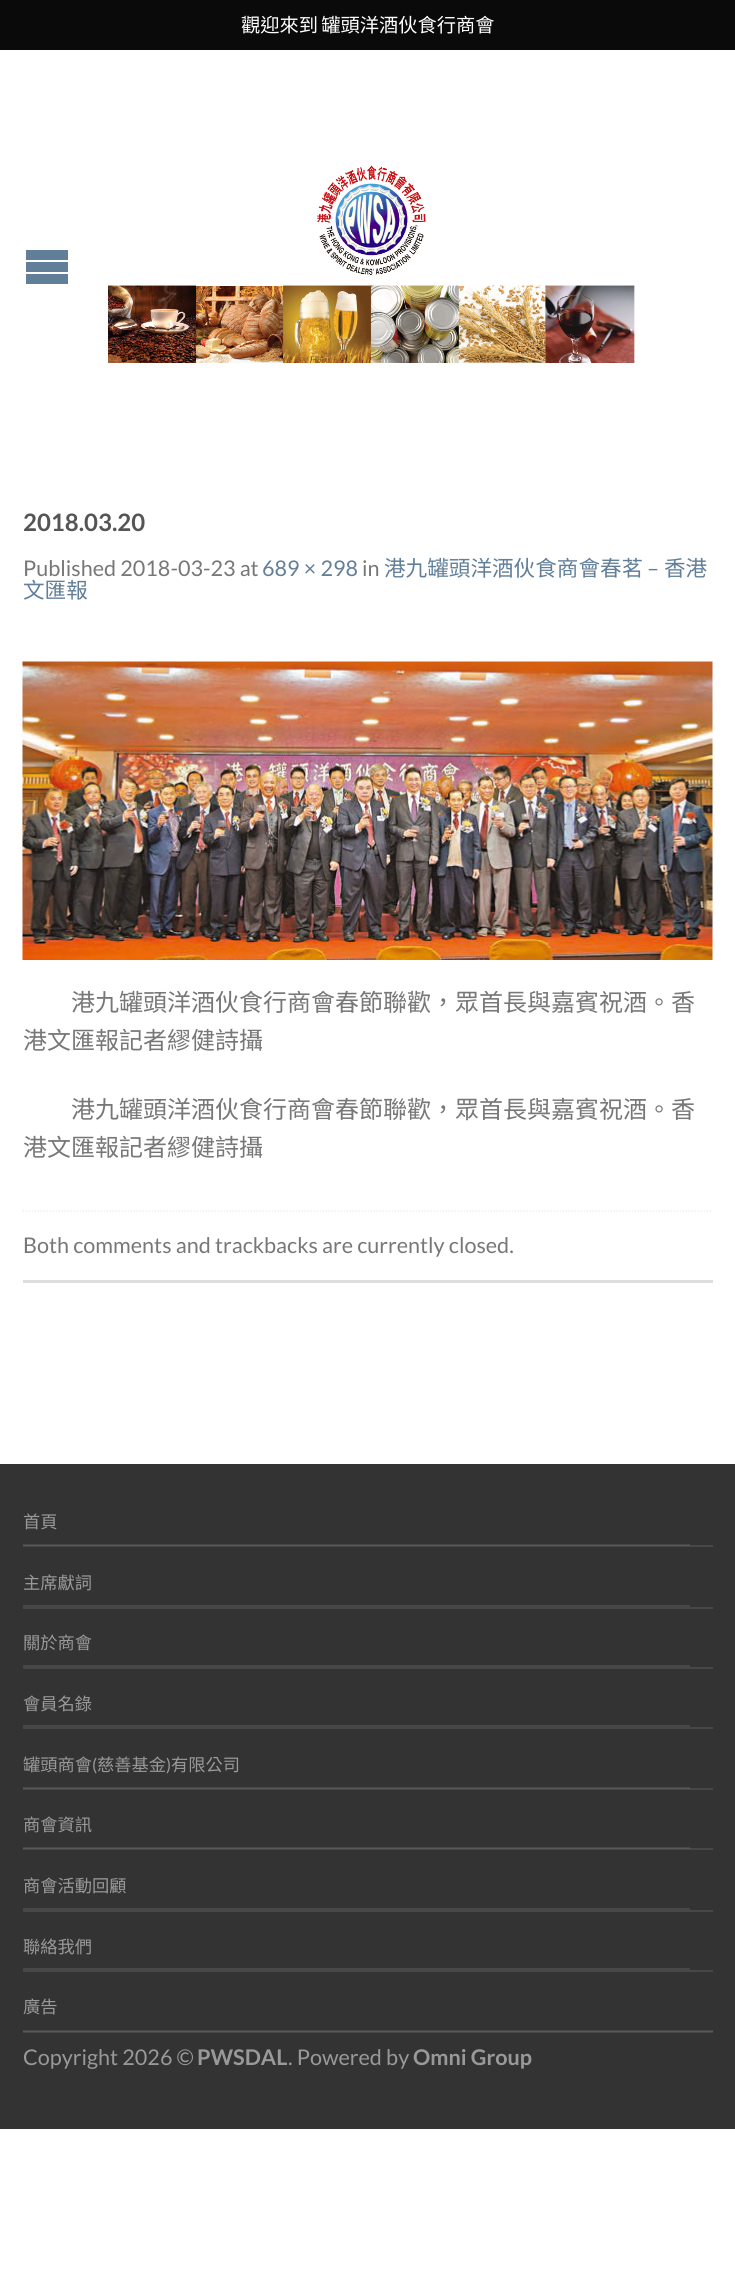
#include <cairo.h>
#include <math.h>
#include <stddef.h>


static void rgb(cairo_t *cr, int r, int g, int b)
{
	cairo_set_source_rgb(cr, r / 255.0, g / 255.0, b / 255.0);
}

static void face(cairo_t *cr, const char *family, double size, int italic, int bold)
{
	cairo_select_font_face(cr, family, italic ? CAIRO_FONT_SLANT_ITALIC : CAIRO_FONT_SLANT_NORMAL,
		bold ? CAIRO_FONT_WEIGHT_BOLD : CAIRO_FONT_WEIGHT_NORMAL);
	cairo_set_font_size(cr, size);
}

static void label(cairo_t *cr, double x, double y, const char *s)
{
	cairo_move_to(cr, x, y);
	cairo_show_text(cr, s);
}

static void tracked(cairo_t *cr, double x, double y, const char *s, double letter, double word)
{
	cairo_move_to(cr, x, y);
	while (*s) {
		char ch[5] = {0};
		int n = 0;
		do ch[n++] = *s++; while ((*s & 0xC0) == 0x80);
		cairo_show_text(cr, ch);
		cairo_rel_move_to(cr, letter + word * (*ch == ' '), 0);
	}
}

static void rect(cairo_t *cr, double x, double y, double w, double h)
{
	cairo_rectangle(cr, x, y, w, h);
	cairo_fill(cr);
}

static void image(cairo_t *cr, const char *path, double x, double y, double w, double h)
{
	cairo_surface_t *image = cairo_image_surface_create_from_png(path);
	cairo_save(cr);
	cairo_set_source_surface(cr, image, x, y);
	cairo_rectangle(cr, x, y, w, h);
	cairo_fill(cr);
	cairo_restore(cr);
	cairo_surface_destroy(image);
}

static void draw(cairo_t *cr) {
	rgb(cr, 255, 255, 255);
	cairo_paint(cr);
	rgb(cr, 10, 10, 10);
	rect(cr, 0, 0, 735, 50);
	face(cr, "Noto Sans CJK TC", 19.25, 0, 0);
	rgb(cr, 255, 255, 255);
	tracked(cr, 241, 32, "觀迎來到 罐頭洋酒伙食行商會", 0, -1);
	rgb(cr, 98, 127, 154);
	cairo_new_path(cr);
	cairo_move_to(cr, 26, 250);
	cairo_line_to(cr, 68, 250);
	cairo_line_to(cr, 68, 260);
	cairo_line_to(cr, 26, 260);
	cairo_close_path(cr);
	cairo_move_to(cr, 26, 262);
	cairo_line_to(cr, 68, 262);
	cairo_line_to(cr, 68, 272);
	cairo_line_to(cr, 26, 272);
	cairo_close_path(cr);
	cairo_move_to(cr, 26, 274);
	cairo_line_to(cr, 68, 274);
	cairo_line_to(cr, 68, 284);
	cairo_line_to(cr, 26, 284);
	cairo_close_path(cr);
	cairo_fill(cr);
	image(cr, "image0.png", 108, 165, 527, 198);
	face(cr, "Lato", 24, 0, 1);
	rgb(cr, 85, 85, 85);
	label(cr, 23, 531, "2018.03.20");
	face(cr, "Lato", 21.6, 0, 0);
	rgb(cr, 119, 119, 119);
	label(cr, 23, 576, "Published 2018-03-23 at");
	rgb(cr, 98, 127, 154);
	label(cr, 262, 576, "689 × 298");
	rgb(cr, 119, 119, 119);
	label(cr, 362, 576, "in");
	face(cr, "Noto Sans CJK TC", 21.6, 0, 0);
	rgb(cr, 98, 127, 154);
	label(cr, 384, 576, "港九罐頭洋酒伙食商會春茗");
	face(cr, "Lato", 21.6, 0, 0);
	label(cr, 647, 576, "–");
	face(cr, "Noto Sans CJK TC", 21.6, 0, 0);
	label(cr, 664, 576, "香港");
	label(cr, 23, 598, "文匯報");
	image(cr, "image1.png", 22, 661, 691, 299);
	face(cr, "Noto Sans CJK TC", 24, 0, 0);
	rgb(cr, 119, 119, 119);
	label(cr, 71, 1011, "港九罐頭洋酒伙食行商會春節聯歡，眾首長與嘉賓祝酒。香");
	label(cr, 23, 1049, "港文匯報記者繆健詩攝");
	label(cr, 71, 1118, "港九罐頭洋酒伙食行商會春節聯歡，眾首長與嘉賓祝酒。香");
	label(cr, 23, 1156, "港文匯報記者繆健詩攝");
	cairo_new_path(cr);
	cairo_move_to(cr, 22.5, 1211);
	cairo_line_to(cr, 712.5, 1211);
	rgb(cr, 238, 238, 238);
	cairo_set_line_width(cr, 1.5);
	cairo_set_dash(cr, (double[]){1.5, 1.5}, 2, 0);
	cairo_stroke(cr);
	rgb(cr, 221, 221, 221);
	rect(cr, 23, 1280, 690, 3);
	face(cr, "Lato", 21.6, 0, 0);
	rgb(cr, 119, 119, 119);
	label(cr, 23, 1253, "Both comments and trackbacks are currently closed.");
	rgb(cr, 51, 51, 51);
	rect(cr, 0, 1464, 735, 665);
	rgb(cr, 71, 71, 71);
	rect(cr, 23, 2030, 690, 1);
	rect(cr, 23, 1847, 667, 1);
	rect(cr, 23, 1787, 667, 1);
	rect(cr, 23, 1544, 667, 1);
	rect(cr, 23, 1545, 690, 2);
	rgb(cr, 89, 89, 89);
	rect(cr, 23, 1545, 667, 1);
	face(cr, "Noto Sans CJK TC", 17.25, 0, 0);
	rgb(cr, 153, 153, 153);
	label(cr, 23, 1528, "首頁");
	rgb(cr, 71, 71, 71);
	rect(cr, 23, 1607, 690, 2);
	rect(cr, 23, 1605, 667, 2);
	rgb(cr, 153, 153, 153);
	label(cr, 23, 1589, "主席獻詞");
	rgb(cr, 71, 71, 71);
	rect(cr, 23, 1667, 690, 2);
	rect(cr, 23, 1665, 667, 2);
	rgb(cr, 153, 153, 153);
	label(cr, 23, 1649, "關於商會");
	rgb(cr, 71, 71, 71);
	rect(cr, 23, 1727, 690, 2);
	rect(cr, 23, 1725, 667, 2);
	rgb(cr, 153, 153, 153);
	label(cr, 23, 1710, "會員名錄");
	rgb(cr, 71, 71, 71);
	rect(cr, 23, 1788, 690, 2);
	rgb(cr, 89, 89, 89);
	rect(cr, 23, 1788, 667, 1);
	rgb(cr, 153, 153, 153);
	label(cr, 23, 1771, "罐頭商會");
	face(cr, "Lato", 17.25, 0, 0);
	label(cr, 92, 1771, "(");
	face(cr, "Noto Sans CJK TC", 17.25, 0, 0);
	label(cr, 97, 1771, "慈善基金");
	face(cr, "Lato", 17.25, 0, 0);
	label(cr, 166, 1771, ")");
	face(cr, "Noto Sans CJK TC", 17.25, 0, 0);
	label(cr, 171, 1771, "有限公司");
	rgb(cr, 71, 71, 71);
	rect(cr, 23, 1848, 690, 2);
	rgb(cr, 89, 89, 89);
	rect(cr, 23, 1848, 667, 1);
	rgb(cr, 153, 153, 153);
	label(cr, 23, 1831, "商會資訊");
	rgb(cr, 71, 71, 71);
	rect(cr, 23, 1910, 690, 2);
	rect(cr, 23, 1908, 667, 2);
	rgb(cr, 153, 153, 153);
	label(cr, 23, 1892, "商會活動回顧");
	rgb(cr, 71, 71, 71);
	rect(cr, 23, 1970, 690, 2);
	rect(cr, 23, 1968, 667, 2);
	rgb(cr, 153, 153, 153);
	label(cr, 23, 1953, "聯絡我們");
	rgb(cr, 71, 71, 71);
	rect(cr, 23, 2032, 690, 1);
	rgb(cr, 89, 89, 89);
	rect(cr, 23, 2031, 690, 1);
	rgb(cr, 153, 153, 153);
	label(cr, 23, 2013, "廣告");
	face(cr, "Lato", 21.6, 0, 0);
	label(cr, 23, 2065, "Copyright 2026 ©");
	face(cr, "Lato", 21.6, 0, 1);
	label(cr, 197, 2065, "PWSDAL");
	face(cr, "Lato", 21.6, 0, 0);
	label(cr, 288, 2065, ". Powered by");
	face(cr, "Lato", 21.6, 0, 1);
	label(cr, 413, 2065, "Omni Group");
}

int main(void) {
	cairo_surface_t *surface = cairo_image_surface_create(CAIRO_FORMAT_RGB24, 735, 2284);
	cairo_t *cr = cairo_create(surface);
	cairo_font_options_t *options = cairo_font_options_create();
	cairo_font_options_set_hint_metrics(options, CAIRO_HINT_METRICS_OFF);
	cairo_font_options_set_hint_style(options, CAIRO_HINT_STYLE_NONE);
	cairo_set_font_options(cr, options);
	cairo_set_miter_limit(cr, 4);
	draw(cr);
	cairo_surface_write_to_png(surface, "render.png");
	cairo_font_options_destroy(options);
	cairo_destroy(cr);
	cairo_surface_destroy(surface);
	return 0;
}
